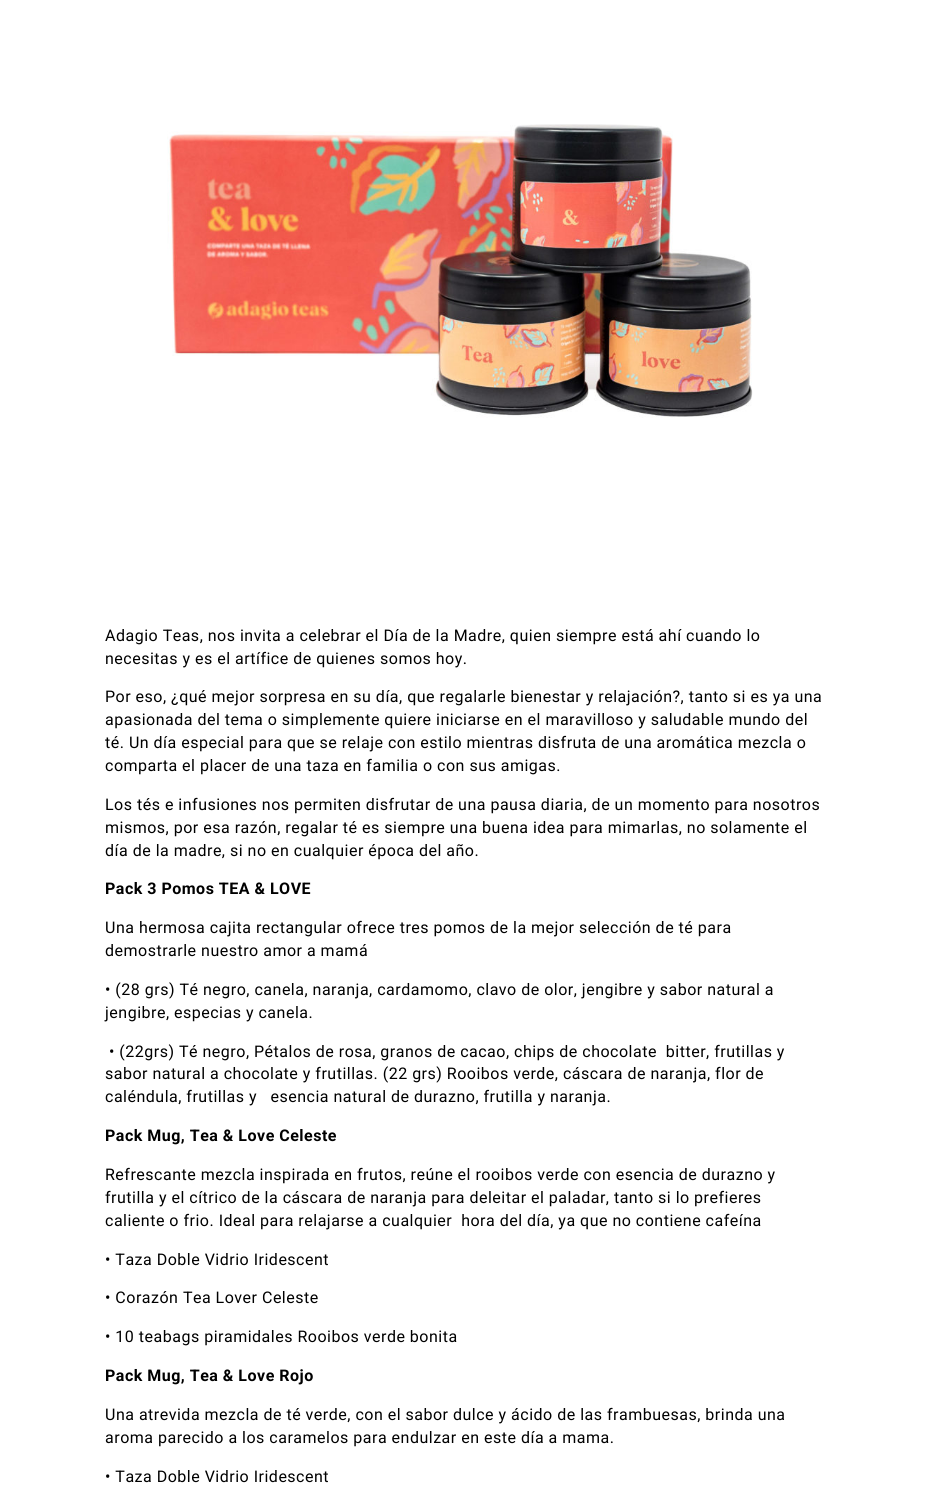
#include <cairo.h>
#include <math.h>
#include <stddef.h>


static void rgb(cairo_t *cr, int r, int g, int b)
{
	cairo_set_source_rgb(cr, r / 255.0, g / 255.0, b / 255.0);
}

static void face(cairo_t *cr, const char *family, double size, int italic, int bold)
{
	cairo_select_font_face(cr, family, italic ? CAIRO_FONT_SLANT_ITALIC : CAIRO_FONT_SLANT_NORMAL,
		bold ? CAIRO_FONT_WEIGHT_BOLD : CAIRO_FONT_WEIGHT_NORMAL);
	cairo_set_font_size(cr, size);
}

static void tracked(cairo_t *cr, double x, double y, const char *s, double letter, double word)
{
	cairo_move_to(cr, x, y);
	while (*s) {
		char ch[5] = {0};
		int n = 0;
		do ch[n++] = *s++; while ((*s & 0xC0) == 0x80);
		cairo_show_text(cr, ch);
		cairo_rel_move_to(cr, letter + word * (*ch == ' '), 0);
	}
}

static void image(cairo_t *cr, const char *path, double x, double y, double w, double h)
{
	cairo_surface_t *image = cairo_image_surface_create_from_png(path);
	cairo_save(cr);
	cairo_set_source_surface(cr, image, x, y);
	cairo_rectangle(cr, x, y, w, h);
	cairo_fill(cr);
	cairo_restore(cr);
	cairo_surface_destroy(image);
}

static void draw(cairo_t *cr) {
	rgb(cr, 255, 255, 255);
	cairo_paint(cr);
	image(cr, "image0.png", 167, 124, 586, 294);
	face(cr, "Roboto", 16, 0, 0);
	rgb(cr, 0, 0, 0);
	tracked(cr, 105, 641, "Adagio Teas, nos invita a celebrar el Día de la Madre, quien siempre está ahí cuando lo", 0.5, 0);
	tracked(cr, 105, 664, "necesitas y es el artífice de quienes somos hoy.", 0.5, 0);
	tracked(cr, 105, 702, "Por eso, ¿qué mejor sorpresa en su día, que regalarle bienestar y relajación?, tanto si es ya una", 0.5, 0);
	tracked(cr, 105, 725, "apasionada del tema o simplemente quiere iniciarse en el maravilloso y saludable mundo del", 0.5, 0);
	tracked(cr, 105, 748, "té. Un día especial para que se relaje con estilo mientras disfruta de una aromática mezcla o", 0.5, 0);
	tracked(cr, 105, 771, "comparta el placer de una taza en familia o con sus amigas.", 0.5, 0);
	tracked(cr, 105, 810, "Los tés e infusiones nos permiten disfrutar de una pausa diaria, de un momento para nosotros", 0.5, 0);
	tracked(cr, 105, 833, "mismos, por esa razón, regalar té es siempre una buena idea para mimarlas, no solamente el", 0.5, 0);
	tracked(cr, 105, 856, "día de la madre, si no en cualquier época del año.", 0.5, 0);
	face(cr, "Roboto", 16, 0, 1);
	tracked(cr, 105, 894, "Pack 3 Pomos TEA & LOVE", 0.5, 0);
	face(cr, "Roboto", 16, 0, 0);
	tracked(cr, 105, 933, "Una hermosa cajita rectangular ofrece tres pomos de la mejor selección de té para", 0.5, 0);
	tracked(cr, 105, 956, "demostrarle nuestro amor a mamá", 0.5, 0);
	tracked(cr, 105, 995, "• (28 grs) Té negro, canela, naranja, cardamomo, clavo de olor, jengibre y sabor natural a", 0.5, 0);
	tracked(cr, 105, 1018, "jengibre, especias y canela.", 0.5, 0);
	tracked(cr, 109, 1057, "• (22grs) Té negro, Pétalos de rosa, granos de cacao, chips de chocolate  bitter, frutillas y", 0.5, 0);
	tracked(cr, 105, 1079, "sabor natural a chocolate y frutillas. (22 grs) Rooibos verde, cáscara de naranja, flor de", 0.5, 0);
	tracked(cr, 105, 1102, "caléndula, frutillas y   esencia natural de durazno, frutilla y naranja.", 0.5, 0);
	face(cr, "Roboto", 16, 0, 1);
	tracked(cr, 105, 1141, "Pack Mug, Tea & Love Celeste", 0.5, 0);
	face(cr, "Roboto", 16, 0, 0);
	tracked(cr, 105, 1180, "Refrescante mezcla inspirada en frutos, reúne el rooibos verde con esencia de durazno y", 0.5, 0);
	tracked(cr, 105, 1203, "frutilla y el cítrico de la cáscara de naranja para deleitar el paladar, tanto si lo prefieres", 0.5, 0);
	tracked(cr, 105, 1226, "caliente o frio. Ideal para relajarse a cualquier  hora del día, ya que no contiene cafeína", 0.5, 0);
	tracked(cr, 105, 1265, "• Taza Doble Vidrio Iridescent", 0.5, 0);
	tracked(cr, 105, 1303, "• Corazón Tea Lover Celeste", 0.5, 0);
	tracked(cr, 105, 1342, "• 10 teabags piramidales Rooibos verde bonita", 0.5, 0);
	face(cr, "Roboto", 16, 0, 1);
	tracked(cr, 105, 1381, "Pack Mug, Tea & Love Rojo", 0.5, 0);
	face(cr, "Roboto", 16, 0, 0);
	tracked(cr, 105, 1420, "Una atrevida mezcla de té verde, con el sabor dulce y ácido de las frambuesas, brinda una", 0.5, 0);
	tracked(cr, 105, 1443, "aroma parecido a los caramelos para endulzar en este día a mama.", 0.5, 0);
	tracked(cr, 105, 1482, "• Taza Doble Vidrio Iridescent", 0.5, 0);
}

int main(void) {
	cairo_surface_t *surface = cairo_image_surface_create(CAIRO_FORMAT_RGB24, 929, 1490);
	cairo_t *cr = cairo_create(surface);
	cairo_font_options_t *options = cairo_font_options_create();
	cairo_font_options_set_hint_metrics(options, CAIRO_HINT_METRICS_OFF);
	cairo_font_options_set_hint_style(options, CAIRO_HINT_STYLE_NONE);
	cairo_set_font_options(cr, options);
	cairo_set_miter_limit(cr, 4);
	draw(cr);
	cairo_surface_write_to_png(surface, "render.png");
	cairo_font_options_destroy(options);
	cairo_destroy(cr);
	cairo_surface_destroy(surface);
	return 0;
}
